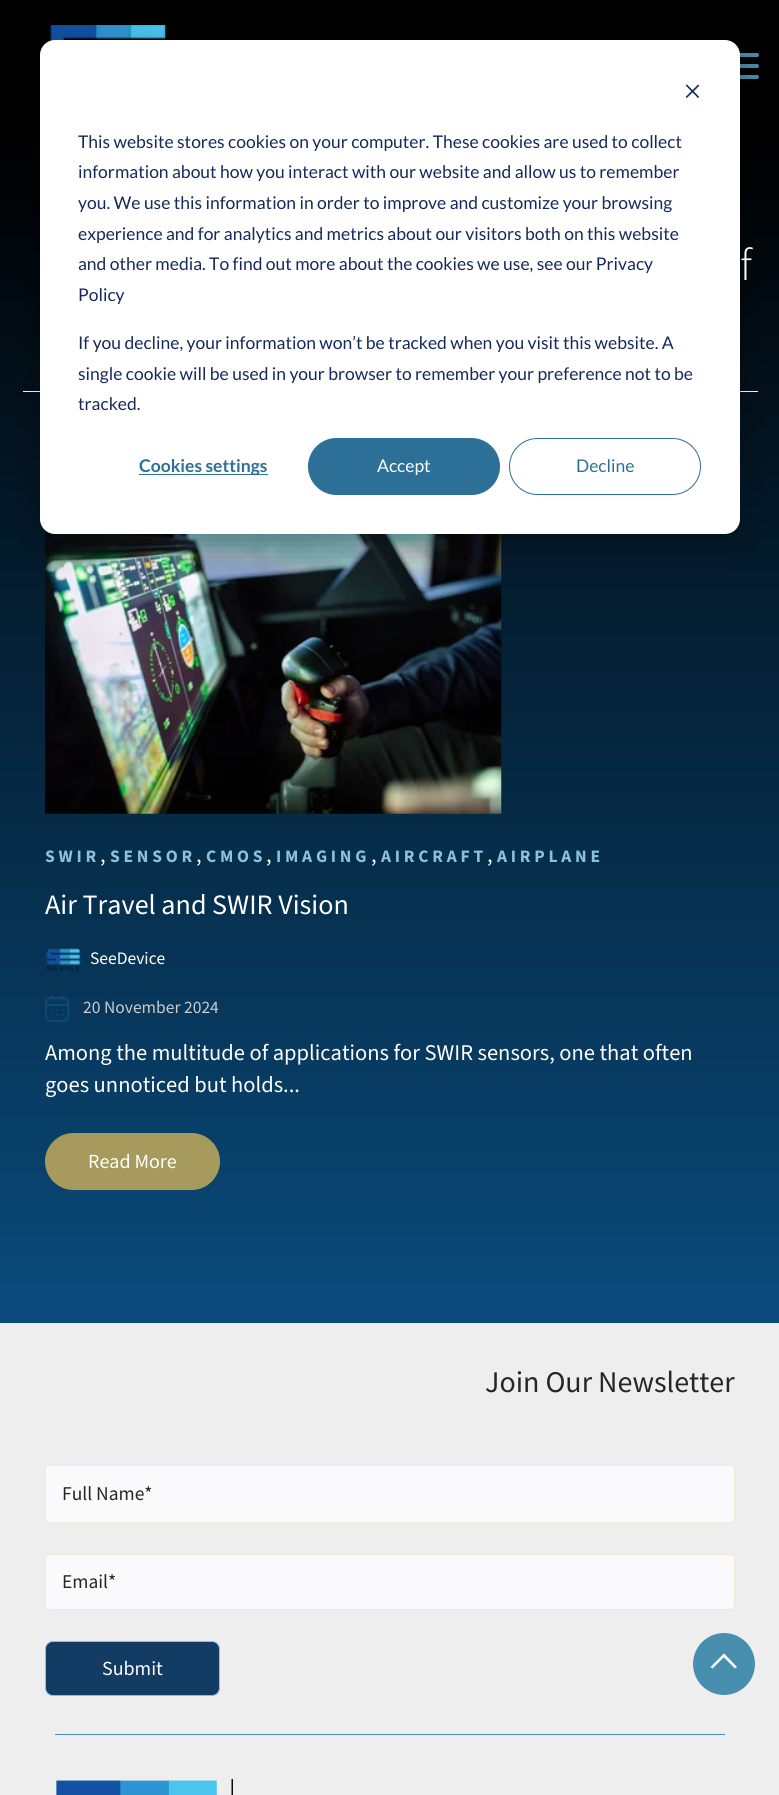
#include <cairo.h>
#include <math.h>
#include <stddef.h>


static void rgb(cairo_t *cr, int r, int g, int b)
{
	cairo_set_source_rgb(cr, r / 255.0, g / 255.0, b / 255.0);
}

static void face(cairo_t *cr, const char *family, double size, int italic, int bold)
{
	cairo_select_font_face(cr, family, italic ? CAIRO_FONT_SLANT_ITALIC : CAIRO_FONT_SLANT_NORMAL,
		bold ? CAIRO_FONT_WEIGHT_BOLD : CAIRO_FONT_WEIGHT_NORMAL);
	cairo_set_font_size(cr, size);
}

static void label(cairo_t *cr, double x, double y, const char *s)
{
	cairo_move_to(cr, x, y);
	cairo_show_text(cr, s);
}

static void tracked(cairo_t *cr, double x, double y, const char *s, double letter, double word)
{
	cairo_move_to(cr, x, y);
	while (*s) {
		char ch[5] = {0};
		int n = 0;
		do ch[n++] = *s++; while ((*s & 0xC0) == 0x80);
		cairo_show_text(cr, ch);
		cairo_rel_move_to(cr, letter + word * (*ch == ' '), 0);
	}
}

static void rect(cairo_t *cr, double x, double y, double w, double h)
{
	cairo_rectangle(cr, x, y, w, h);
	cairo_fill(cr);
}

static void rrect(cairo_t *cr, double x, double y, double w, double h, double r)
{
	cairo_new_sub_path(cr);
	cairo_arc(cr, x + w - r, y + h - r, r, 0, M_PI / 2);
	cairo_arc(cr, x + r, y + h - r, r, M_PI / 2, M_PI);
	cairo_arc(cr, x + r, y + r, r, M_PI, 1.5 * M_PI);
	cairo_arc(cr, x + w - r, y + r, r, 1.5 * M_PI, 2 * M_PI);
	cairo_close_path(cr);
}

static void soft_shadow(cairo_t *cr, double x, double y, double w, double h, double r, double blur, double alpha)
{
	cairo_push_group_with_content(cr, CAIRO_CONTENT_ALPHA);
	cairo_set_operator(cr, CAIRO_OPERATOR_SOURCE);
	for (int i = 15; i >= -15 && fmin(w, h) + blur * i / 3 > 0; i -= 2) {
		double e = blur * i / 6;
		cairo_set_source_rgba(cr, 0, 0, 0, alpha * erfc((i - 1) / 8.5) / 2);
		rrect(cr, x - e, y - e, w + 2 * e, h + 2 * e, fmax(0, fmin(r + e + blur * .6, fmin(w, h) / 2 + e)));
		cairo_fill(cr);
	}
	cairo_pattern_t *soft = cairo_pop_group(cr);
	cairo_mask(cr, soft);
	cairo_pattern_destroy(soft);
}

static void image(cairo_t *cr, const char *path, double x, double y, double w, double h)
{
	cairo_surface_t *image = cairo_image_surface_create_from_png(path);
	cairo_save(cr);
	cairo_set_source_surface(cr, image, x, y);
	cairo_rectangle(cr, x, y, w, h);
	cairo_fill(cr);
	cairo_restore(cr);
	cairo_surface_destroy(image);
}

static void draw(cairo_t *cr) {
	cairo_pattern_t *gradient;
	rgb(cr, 255, 255, 255);
	cairo_paint(cr);
	rgb(cr, 0, 0, 0);
	rect(cr, 0, 0, 779, 134);
	image(cr, "image1.png", 49, 25, 118, 16);
	rgb(cr, 72, 143, 175);
	rrect(cr, 724, 53, 35, 4, 2);
	cairo_fill(cr);
	rrect(cr, 724, 64, 35, 4, 2);
	cairo_fill(cr);
	rrect(cr, 724, 75, 35, 4, 2);
	cairo_fill(cr);
	gradient = cairo_pattern_create_linear(390, 134, 390, 1323);
	cairo_pattern_add_color_stop_rgba(gradient, 0, 0, 0, 0, 1);
	cairo_pattern_add_color_stop_rgba(gradient, 1, 0.039, 0.294, 0.486, 1);
	cairo_set_source(cr, gradient);
	cairo_pattern_destroy(gradient);
	rect(cr, 0, 134, 779, 1189);
	rgb(cr, 255, 255, 255);
	rect(cr, 23, 391, 735, 1);
	image(cr, "image2.png", 45, 530, 457, 284);
	rgb(cr, 0, 0, 0);
	soft_shadow(cr, 40, 50, 700, 494, 15, 17.5, 0.28);
	rgb(cr, 255, 255, 255);
	rrect(cr, 40, 40, 700, 494, 15);
	cairo_fill(cr);
	image(cr, "image0.png", 685, 84, 15, 14);
	face(cr, "Lato", 17.5, 0, 0);
	rgb(cr, 21, 41, 90);
	label(cr, 78, 148, "This website stores cookies on your computer. These cookies are used to collect");
	label(cr, 78, 178, "information about how you interact with our website and allow us to remember");
	label(cr, 78, 209, "you. We use this information in order to improve and customize your browsing");
	label(cr, 78, 240, "experience and for analytics and metrics about our visitors both on this website");
	label(cr, 78, 270, "and other media. To find out more about the cookies we use, see our Privacy");
	label(cr, 78, 301, "Policy");
	label(cr, 78, 349, "If you decline, your information won’t be tracked when you visit this website. A");
	label(cr, 78, 380, "single cookie will be used in your browser to remember your preference not to be");
	label(cr, 78, 410, "tracked.");
	rgb(cr, 44, 112, 152);
	rect(cr, 139, 474, 129, 1);
	face(cr, "Lato", 17.5, 0, 1);
	label(cr, 139, 472, "Cookies settings");
	rrect(cr, 308.5, 438.5, 191, 56, 28);
	cairo_fill_preserve(cr);
	cairo_set_line_width(cr, 1);
	cairo_stroke(cr);
	face(cr, "Lato", 17.5, 0, 0);
	rgb(cr, 255, 255, 255);
	label(cr, 377, 472, "Accept");
	rrect(cr, 509.5, 438.5, 191, 56, 28);
	rgb(cr, 44, 112, 152);
	cairo_stroke(cr);
	label(cr, 576, 472, "Decline");
	face(cr, "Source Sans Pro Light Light", 45, 0, 0);
	rgb(cr, 255, 255, 255);
	label(cr, 740, 280, "f");
	face(cr, "Source Sans 3", 17.5, 0, 1);
	rgb(cr, 138, 194, 217);
	tracked(cr, 45, 862, "SWIR", 3.75, 0);
	face(cr, "Source Sans Pro", 22.5, 0, 0);
	rgb(cr, 255, 255, 255);
	label(cr, 100, 862, ",");
	face(cr, "Source Sans 3", 17.5, 0, 1);
	rgb(cr, 138, 194, 217);
	tracked(cr, 110, 862, "SENSOR", 3.75, 0);
	face(cr, "Source Sans Pro", 22.5, 0, 0);
	rgb(cr, 255, 255, 255);
	label(cr, 196, 862, ",");
	face(cr, "Source Sans 3", 17.5, 0, 1);
	rgb(cr, 138, 194, 217);
	tracked(cr, 206, 862, "CMOS", 3.75, 0);
	face(cr, "Source Sans Pro", 22.5, 0, 0);
	rgb(cr, 255, 255, 255);
	label(cr, 266, 862, ",");
	face(cr, "Source Sans 3", 17.5, 0, 1);
	rgb(cr, 138, 194, 217);
	tracked(cr, 276, 862, "IMAGING", 3.75, 0);
	face(cr, "Source Sans Pro", 22.5, 0, 0);
	rgb(cr, 255, 255, 255);
	label(cr, 371, 862, ",");
	face(cr, "Source Sans 3", 17.5, 0, 1);
	rgb(cr, 138, 194, 217);
	tracked(cr, 381, 862, "AIRCRAFT", 3.75, 0);
	face(cr, "Source Sans Pro", 22.5, 0, 0);
	rgb(cr, 255, 255, 255);
	label(cr, 487, 862, ",");
	face(cr, "Source Sans 3", 17.5, 0, 1);
	rgb(cr, 138, 194, 217);
	tracked(cr, 497, 862, "AIRPLANE", 3.75, 0);
	face(cr, "Source Sans 3", 28.1, 0, 0);
	rgb(cr, 255, 255, 255);
	label(cr, 45, 914, "Air Travel and SWIR Vision");
	image(cr, "image3.png", 46, 948, 35, 24);
	face(cr, "Source Sans 3", 17.5, 0, 0);
	label(cr, 90, 964, "SeeDevice");
	image(cr, "image4.png", 45, 995, 25, 27);
	face(cr, "Source Sans Pro", 17.5, 0, 0);
	rgb(cr, 204, 204, 204);
	label(cr, 83, 1013, "20 November 2024");
	face(cr, "Source Sans 3", 22.5, 0, 0);
	rgb(cr, 255, 255, 255);
	label(cr, 45, 1060, "Among the multitude of applications for SWIR sensors, one that often");
	label(cr, 45, 1092, "goes unnoticed but holds...");
	cairo_set_source_rgba(cr, 0.91, 0.757, 0.337, 0.7);
	rrect(cr, 45, 1133, 175, 57, 28.5);
	cairo_fill(cr);
	face(cr, "Source Sans Pro", 20, 0, 0);
	rgb(cr, 255, 255, 255);
	label(cr, 88, 1168, "Read More");
	rgb(cr, 238, 238, 238);
	rect(cr, 0, 1323, 779, 472);
	face(cr, "Source Sans Pro", 30, 0, 0);
	rgb(cr, 38, 38, 38);
	label(cr, 485, 1392, "Join Our Newsletter");
	rgb(cr, 250, 250, 253);
	rrect(cr, 45.5, 1465.5, 689, 57, 3.5);
	cairo_fill_preserve(cr);
	rgb(cr, 243, 234, 218);
	cairo_stroke(cr);
	face(cr, "Source Sans Pro", 19.5, 0, 0);
	rgb(cr, 38, 38, 38);
	label(cr, 62, 1500, "Full Name*");
	rgb(cr, 250, 250, 253);
	rrect(cr, 45.5, 1554.5, 689, 55, 3.5);
	cairo_fill_preserve(cr);
	rgb(cr, 243, 234, 218);
	cairo_stroke(cr);
	rgb(cr, 38, 38, 38);
	label(cr, 62, 1588, "Email*");
	rgb(cr, 18, 60, 99);
	rrect(cr, 45.5, 1641.5, 174, 54, 7.5);
	cairo_fill_preserve(cr);
	rgb(cr, 138, 194, 217);
	cairo_stroke(cr);
	face(cr, "Source Sans 3", 20, 0, 0);
	rgb(cr, 255, 255, 255);
	label(cr, 102, 1675, "Submit");
	rgb(cr, 72, 143, 175);
	rect(cr, 55, 1734, 670, 1);
	image(cr, "image5.png", 56, 1778, 177, 17);
	cairo_arc(cr, 724, 1664, 31, 0, 2 * M_PI);
	cairo_fill(cr);
	rgb(cr, 255, 255, 255);
	cairo_new_path(cr);
	cairo_move_to(cr, 724, 1653.5);
	cairo_line_to(cr, 737, 1667);
	cairo_line_to(cr, 735, 1668.5);
	cairo_line_to(cr, 722, 1655.5);
	cairo_close_path(cr);
	cairo_fill(cr);
	cairo_new_path(cr);
	cairo_move_to(cr, 724, 1653.5);
	cairo_line_to(cr, 725.5, 1655.5);
	cairo_line_to(cr, 712.5, 1668.5);
	cairo_line_to(cr, 710.5, 1667);
	cairo_close_path(cr);
	cairo_fill(cr);
}

int main(void) {
	cairo_surface_t *surface = cairo_image_surface_create(CAIRO_FORMAT_RGB24, 779, 1795);
	cairo_t *cr = cairo_create(surface);
	cairo_font_options_t *options = cairo_font_options_create();
	cairo_font_options_set_hint_metrics(options, CAIRO_HINT_METRICS_OFF);
	cairo_font_options_set_hint_style(options, CAIRO_HINT_STYLE_NONE);
	cairo_set_font_options(cr, options);
	cairo_set_miter_limit(cr, 4);
	draw(cr);
	cairo_surface_write_to_png(surface, "render.png");
	cairo_font_options_destroy(options);
	cairo_destroy(cr);
	cairo_surface_destroy(surface);
	return 0;
}
